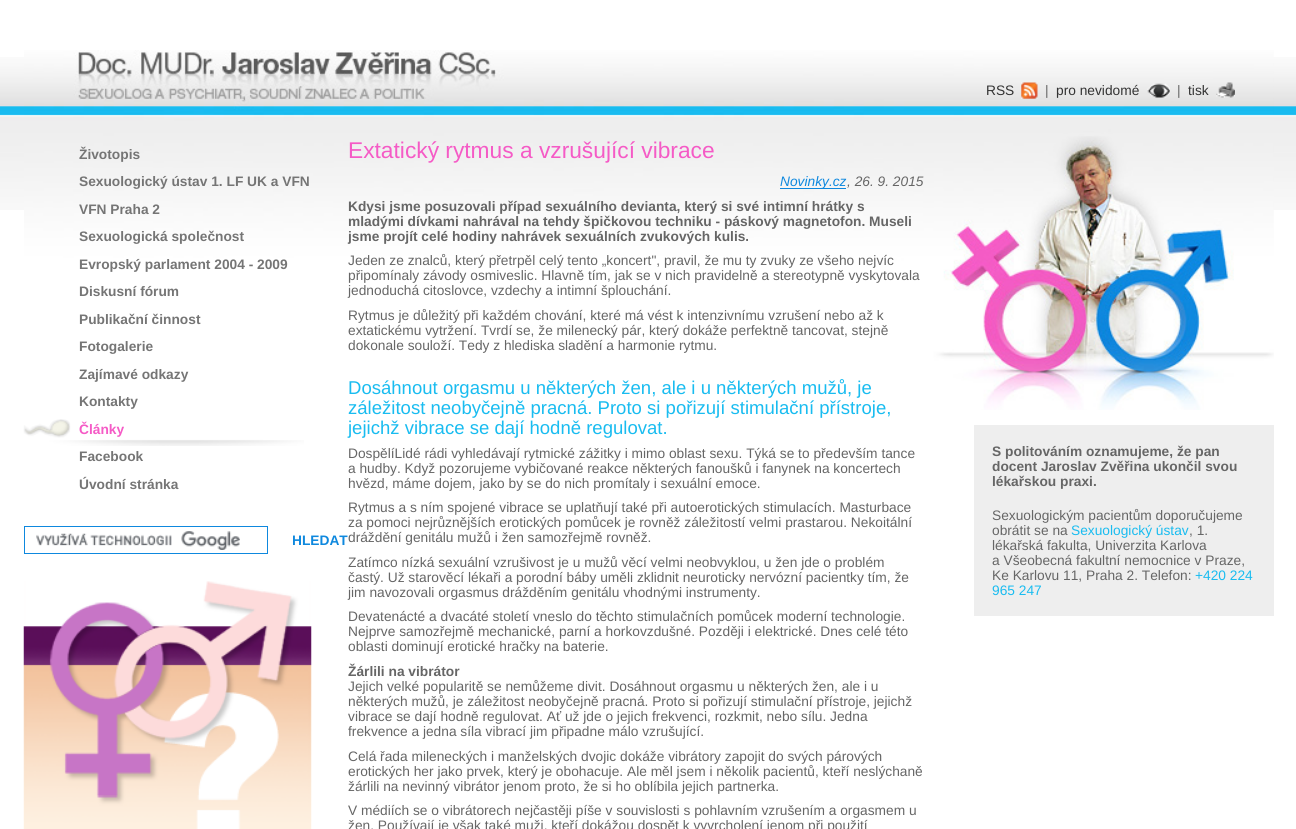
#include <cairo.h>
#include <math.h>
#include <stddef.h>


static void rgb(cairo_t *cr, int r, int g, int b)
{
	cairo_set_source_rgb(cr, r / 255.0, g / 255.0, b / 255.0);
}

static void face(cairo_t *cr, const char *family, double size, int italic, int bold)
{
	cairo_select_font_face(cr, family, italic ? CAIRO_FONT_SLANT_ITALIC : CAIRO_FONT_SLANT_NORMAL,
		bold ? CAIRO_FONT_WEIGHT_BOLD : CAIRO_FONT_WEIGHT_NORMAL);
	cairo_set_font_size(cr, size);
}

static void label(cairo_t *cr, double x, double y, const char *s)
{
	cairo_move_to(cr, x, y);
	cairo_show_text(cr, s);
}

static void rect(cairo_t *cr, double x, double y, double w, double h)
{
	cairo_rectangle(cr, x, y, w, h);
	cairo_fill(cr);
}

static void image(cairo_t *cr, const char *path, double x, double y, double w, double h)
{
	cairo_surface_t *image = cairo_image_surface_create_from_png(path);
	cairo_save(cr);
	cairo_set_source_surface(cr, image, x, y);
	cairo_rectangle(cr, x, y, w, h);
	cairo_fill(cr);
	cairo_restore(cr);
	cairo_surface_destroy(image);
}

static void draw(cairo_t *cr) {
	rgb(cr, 255, 255, 255);
	cairo_paint(cr);
	image(cr, "image0.png", 0, 57, 1296, 153);
	image(cr, "image1.png", 24, 50, 1250, 360);
	face(cr, "Liberation Sans", 13.75, 0, 0);
	rgb(cr, 51, 51, 51);
	label(cr, 986, 95, "RSS");
	image(cr, "image2.png", 1021, 82, 17, 17);
	rgb(cr, 102, 102, 102);
	label(cr, 1045, 95, "|");
	rgb(cr, 51, 51, 51);
	label(cr, 1056, 95, "pro nevidomé");
	image(cr, "image3.png", 1147, 83, 23, 15);
	rgb(cr, 102, 102, 102);
	label(cr, 1177, 95, "|");
	rgb(cr, 51, 51, 51);
	label(cr, 1188, 95, "tisk");
	image(cr, "image4.png", 1216, 82, 19, 16);
	face(cr, "Liberation Sans", 13.75, 0, 1);
	rgb(cr, 117, 117, 117);
	label(cr, 79, 159, "Životopis");
	label(cr, 79, 186, "Sexuologický ústav 1. LF UK a VFN");
	label(cr, 79, 214, "VFN Praha 2");
	label(cr, 79, 241, "Sexuologická společnost");
	label(cr, 79, 269, "Evropský parlament 2004 - 2009");
	label(cr, 79, 296, "Diskusní fórum");
	label(cr, 79, 324, "Publikační činnost");
	label(cr, 79, 351, "Fotogalerie");
	label(cr, 79, 379, "Zajímavé odkazy");
	label(cr, 79, 406, "Kontakty");
	image(cr, "image5.png", 23, 419, 281, 27);
	rgb(cr, 245, 91, 198);
	label(cr, 79, 434, "Články");
	rgb(cr, 117, 117, 117);
	label(cr, 79, 461, "Facebook");
	label(cr, 79, 489, "Úvodní stránka");
	image(cr, "image6.png", 36, 531, 204, 19);
	cairo_rectangle(cr, 24.5, 526.5, 243, 27);
	rgb(cr, 14, 136, 222);
	cairo_set_line_width(cr, 1);
	cairo_stroke(cr);
	cairo_save(cr);
	cairo_rectangle(cr, 293, 526, 55, 28);
	cairo_clip(cr);
	label(cr, 292, 545, "HLEDAT");
	cairo_restore(cr);
	image(cr, "image7.png", 23, 581, 289, 248);
	face(cr, "Liberation Sans", 22.75, 0, 0);
	rgb(cr, 245, 91, 198);
	label(cr, 348, 158, "Extatický rytmus a vzrušující vibrace");
	rgb(cr, 14, 136, 222);
	rect(cr, 780, 188, 66, 1);
	face(cr, "Liberation Sans", 13.75, 1, 0);
	label(cr, 780, 186, "Novinky.cz");
	rgb(cr, 102, 102, 102);
	label(cr, 847, 186, ", 26. 9. 2015");
	face(cr, "Liberation Sans", 13.75, 0, 1);
	label(cr, 348, 211, "Kdysi jsme posuzovali případ sexuálního devianta, který si své intimní hrátky s");
	label(cr, 348, 226, "mladými dívkami nahrával na tehdy špičkovou techniku - páskový magnetofon. Museli");
	label(cr, 348, 241, "jsme projít celé hodiny nahrávek sexuálních zvukových kulis.");
	face(cr, "Liberation Sans", 13.75, 0, 0);
	label(cr, 348, 265, "Jeden ze znalců, který přetrpěl celý tento „koncert\", pravil, že mu ty zvuky ze všeho nejvíc");
	label(cr, 348, 280, "připomínaly závody osmiveslic. Hlavně tím, jak se v nich pravidelně a stereotypně vyskytovala");
	label(cr, 348, 295, "jednoduchá citoslovce, vzdechy a intimní šplouchání.");
	label(cr, 348, 320, "Rytmus je důležitý při každém chování, které má vést k intenzivnímu vzrušení nebo až k");
	label(cr, 348, 335, "extatickému vytržení. Tvrdí se, že milenecký pár, který dokáže perfektně tancovat, stejně");
	label(cr, 348, 350, "dokonale souloží. Tedy z hlediska sladění a harmonie rytmu.");
	face(cr, "Liberation Sans", 18.55, 0, 0);
	rgb(cr, 25, 188, 240);
	label(cr, 348, 394, "Dosáhnout orgasmu u některých žen, ale i u některých mužů, je");
	label(cr, 348, 414, "záležitost neobyčejně pracná. Proto si pořizují stimulační přístroje,");
	label(cr, 348, 434, "jejichž vibrace se dají hodně regulovat.");
	face(cr, "Liberation Sans", 13.75, 0, 0);
	rgb(cr, 102, 102, 102);
	label(cr, 348, 458, "DospělíLidé rádi vyhledávají rytmické zážitky i mimo oblast sexu. Týká se to především tance");
	label(cr, 348, 473, "a hudby. Když pozorujeme vybičované reakce některých fanoušků i fanynek na koncertech");
	label(cr, 348, 488, "hvězd, máme dojem, jako by se do nich promítaly i sexuální emoce.");
	label(cr, 348, 512, "Rytmus a s ním spojené vibrace se uplatňují také při autoerotických stimulacích. Masturbace");
	label(cr, 348, 527, "za pomoci nejrůznějších erotických pomůcek je rovněž záležitostí velmi prastarou. Nekoitální");
	label(cr, 348, 542, "dráždění genitálu mužů i žen samozřejmě rovněž.");
	label(cr, 348, 567, "Zatímco nízká sexuální vzrušivost je u mužů věcí velmi neobvyklou, u žen jde o problém");
	label(cr, 348, 582, "častý. Už starověcí lékaři a porodní báby uměli zklidnit neuroticky nervózní pacientky tím, že");
	label(cr, 348, 597, "jim navozovali orgasmus drážděním genitálu vhodnými instrumenty.");
	label(cr, 348, 621, "Devatenácté a dvacáté století vneslo do těchto stimulačních pomůcek moderní technologie.");
	label(cr, 348, 636, "Nejprve samozřejmě mechanické, parní a horkovzdušné. Později i elektrické. Dnes celé této");
	label(cr, 348, 651, "oblasti dominují erotické hračky na baterie.");
	face(cr, "Liberation Sans", 13.75, 0, 1);
	label(cr, 348, 676, "Žárlili na vibrátor");
	face(cr, "Liberation Sans", 13.75, 0, 0);
	label(cr, 348, 691, "Jejich velké popularitě se nemůžeme divit. Dosáhnout orgasmu u některých žen, ale i u");
	label(cr, 348, 706, "některých mužů, je záležitost neobyčejně pracná. Proto si pořizují stimulační přístroje, jejichž");
	label(cr, 348, 721, "vibrace se dají hodně regulovat. Ať už jde o jejich frekvenci, rozkmit, nebo sílu. Jedna");
	label(cr, 348, 736, "frekvence a jedna síla vibrací jim připadne málo vzrušující.");
	label(cr, 348, 761, "Celá řada mileneckých i manželských dvojic dokáže vibrátory zapojit do svých párových");
	label(cr, 348, 776, "erotických her jako prvek, který je obohacuje. Ale měl jsem i několik pacientů, kteří neslýchaně");
	label(cr, 348, 791, "žárlili na nevinný vibrátor jenom proto, že si ho oblíbila jejich partnerka.");
	label(cr, 348, 815, "V médiích se o vibrátorech nejčastěji píše v souvislosti s pohlavním vzrušením a orgasmem u");
	label(cr, 348, 830, "žen. Používají je však také muži, kteří dokážou dospět k vyvrcholení jenom při použití");
	rgb(cr, 238, 238, 238);
	rect(cr, 974, 425, 300, 191);
	face(cr, "Liberation Sans", 13.75, 0, 1);
	rgb(cr, 102, 102, 102);
	label(cr, 992, 456, "S politováním oznamujeme, že pan");
	label(cr, 992, 471, "docent Jaroslav Zvěřina ukončil svou");
	label(cr, 992, 486, "lékařskou praxi.");
	face(cr, "Liberation Sans", 13.75, 0, 0);
	label(cr, 992, 520, "Sexuologickým pacientům doporučujeme");
	label(cr, 992, 535, "obrátit se na");
	rgb(cr, 25, 188, 240);
	label(cr, 1071, 535, "Sexuologický ústav");
	rgb(cr, 102, 102, 102);
	label(cr, 1189, 535, ", 1.");
	label(cr, 992, 550, "lékařská fakulta, Univerzita Karlova");
	label(cr, 992, 565, "a Všeobecná fakultní nemocnice v Praze,");
	label(cr, 992, 580, "Ke Karlovu 11, Praha 2. Telefon:");
	rgb(cr, 25, 188, 240);
	label(cr, 1195, 580, "+420 224");
	label(cr, 992, 595, "965 247");
}

int main(void) {
	cairo_surface_t *surface = cairo_image_surface_create(CAIRO_FORMAT_RGB24, 1296, 829);
	cairo_t *cr = cairo_create(surface);
	cairo_font_options_t *options = cairo_font_options_create();
	cairo_font_options_set_hint_metrics(options, CAIRO_HINT_METRICS_OFF);
	cairo_font_options_set_hint_style(options, CAIRO_HINT_STYLE_NONE);
	cairo_set_font_options(cr, options);
	cairo_set_miter_limit(cr, 4);
	draw(cr);
	cairo_surface_write_to_png(surface, "render.png");
	cairo_font_options_destroy(options);
	cairo_destroy(cr);
	cairo_surface_destroy(surface);
	return 0;
}
